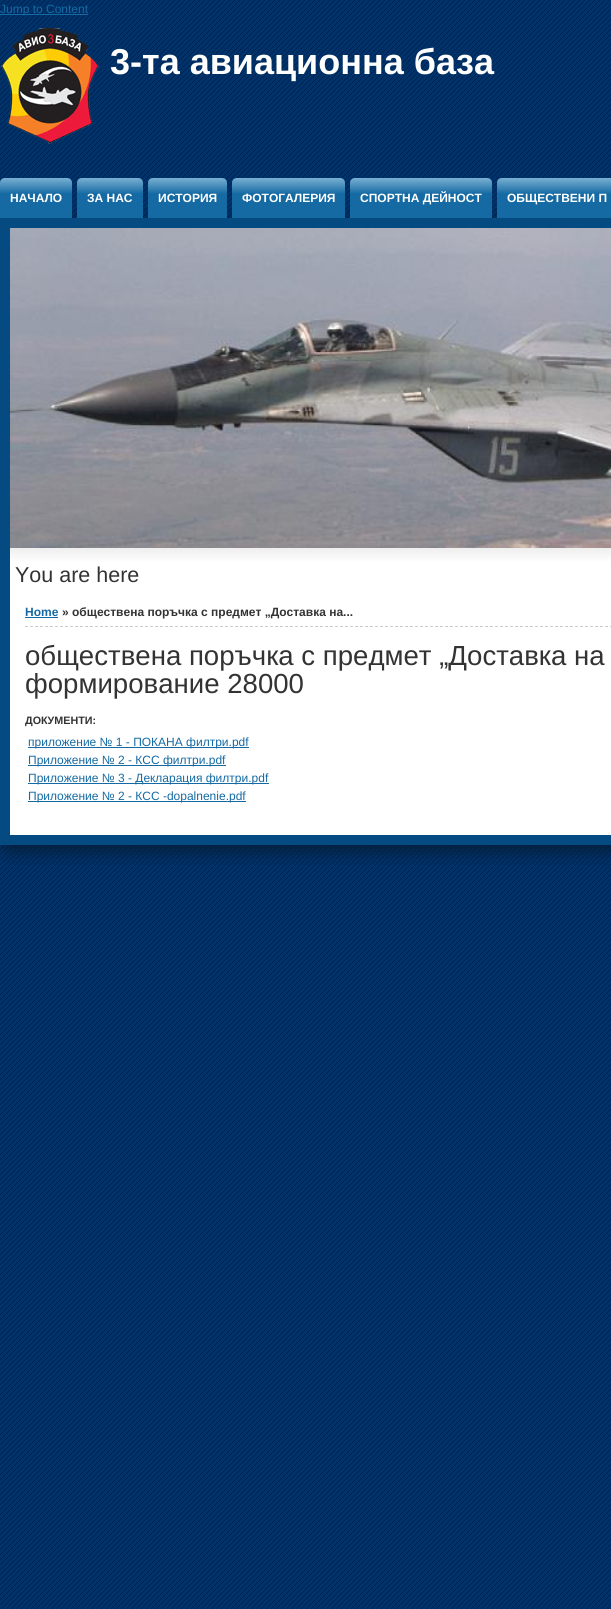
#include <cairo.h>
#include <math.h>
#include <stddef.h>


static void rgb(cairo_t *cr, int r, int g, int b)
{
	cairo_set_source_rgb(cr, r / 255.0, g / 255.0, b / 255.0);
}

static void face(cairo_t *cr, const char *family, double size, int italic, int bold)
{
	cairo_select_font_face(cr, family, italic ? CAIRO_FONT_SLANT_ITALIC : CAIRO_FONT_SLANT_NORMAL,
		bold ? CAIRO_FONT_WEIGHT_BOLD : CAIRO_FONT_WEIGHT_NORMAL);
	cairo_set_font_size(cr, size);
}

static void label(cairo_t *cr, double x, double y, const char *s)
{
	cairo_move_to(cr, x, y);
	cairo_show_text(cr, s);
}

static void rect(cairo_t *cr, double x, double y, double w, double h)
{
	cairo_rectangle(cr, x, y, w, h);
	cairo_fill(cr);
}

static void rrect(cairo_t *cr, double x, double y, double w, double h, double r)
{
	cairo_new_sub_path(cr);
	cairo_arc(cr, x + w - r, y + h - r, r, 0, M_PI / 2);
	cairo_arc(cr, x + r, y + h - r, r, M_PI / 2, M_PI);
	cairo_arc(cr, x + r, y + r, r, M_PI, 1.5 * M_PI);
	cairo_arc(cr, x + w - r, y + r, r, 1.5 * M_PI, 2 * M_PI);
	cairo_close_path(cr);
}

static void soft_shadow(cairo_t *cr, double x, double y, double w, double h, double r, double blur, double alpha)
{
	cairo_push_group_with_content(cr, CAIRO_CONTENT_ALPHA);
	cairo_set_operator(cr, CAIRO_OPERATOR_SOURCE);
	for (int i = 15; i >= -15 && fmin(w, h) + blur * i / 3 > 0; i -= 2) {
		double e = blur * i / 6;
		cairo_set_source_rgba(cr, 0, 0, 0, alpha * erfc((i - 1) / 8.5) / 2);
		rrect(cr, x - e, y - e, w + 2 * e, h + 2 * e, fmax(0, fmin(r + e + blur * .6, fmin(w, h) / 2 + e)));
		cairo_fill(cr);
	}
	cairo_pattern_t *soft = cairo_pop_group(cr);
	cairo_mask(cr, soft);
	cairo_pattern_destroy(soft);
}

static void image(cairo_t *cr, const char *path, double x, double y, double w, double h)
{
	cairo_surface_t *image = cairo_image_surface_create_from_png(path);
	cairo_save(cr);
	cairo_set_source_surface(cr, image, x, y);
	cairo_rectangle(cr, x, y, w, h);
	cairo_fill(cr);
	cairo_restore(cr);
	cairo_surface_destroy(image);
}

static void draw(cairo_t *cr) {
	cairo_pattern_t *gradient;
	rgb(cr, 255, 255, 255);
	cairo_paint(cr);
	image(cr, "image0.png", 0, 0, 611, 1609);
	rgb(cr, 21, 106, 163);
	rect(cr, 0, 14, 88, 1);
	face(cr, "Liberation Sans", 12, 0, 0);
	label(cr, 0, 13, "Jump to Content");
	image(cr, "image1.png", 0, 28, 100, 116);
	face(cr, "Liberation Sans", 36, 0, 1);
	rgb(cr, 255, 255, 255);
	label(cr, 110, 74, "3-та авиационна база");
	rgb(cr, 5, 27, 50);
	soft_shadow(cr, 5, 223, 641, 627, 5, 10, 1);
	gradient = cairo_pattern_create_linear(0, 178, 0, 218);
	cairo_pattern_add_color_stop_rgba(gradient, 0, 0.478, 0.69, 0.831, 1);
	cairo_pattern_add_color_stop_rgba(gradient, 0.4, 0.082, 0.416, 0.639, 1);
	cairo_set_source(cr, gradient);
	cairo_pattern_destroy(gradient);
	cairo_new_path(cr);
	cairo_move_to(cr, 5, 178);
	cairo_line_to(cr, 67, 178);
	cairo_curve_to(cr, 70, 178, 72, 180, 72, 183);
	cairo_line_to(cr, 72, 218);
	cairo_line_to(cr, 0, 218);
	cairo_line_to(cr, 0, 183);
	cairo_curve_to(cr, 0, 180, 2, 178, 5, 178);
	cairo_close_path(cr);
	cairo_fill(cr);
	face(cr, "Liberation Sans", 12, 0, 1);
	rgb(cr, 255, 255, 255);
	label(cr, 10, 202, "НАЧАЛО");
	gradient = cairo_pattern_create_linear(77, 178, 77, 218);
	cairo_pattern_add_color_stop_rgba(gradient, 0, 0.478, 0.69, 0.831, 1);
	cairo_pattern_add_color_stop_rgba(gradient, 0.4, 0.082, 0.416, 0.639, 1);
	cairo_set_source(cr, gradient);
	cairo_pattern_destroy(gradient);
	cairo_new_path(cr);
	cairo_move_to(cr, 82, 178);
	cairo_line_to(cr, 138, 178);
	cairo_curve_to(cr, 141, 178, 143, 180, 143, 183);
	cairo_line_to(cr, 143, 218);
	cairo_line_to(cr, 77, 218);
	cairo_line_to(cr, 77, 183);
	cairo_curve_to(cr, 77, 180, 79, 178, 82, 178);
	cairo_close_path(cr);
	cairo_fill(cr);
	rgb(cr, 255, 255, 255);
	label(cr, 87, 202, "ЗА НАС");
	gradient = cairo_pattern_create_linear(148, 178, 148, 218);
	cairo_pattern_add_color_stop_rgba(gradient, 0, 0.478, 0.69, 0.831, 1);
	cairo_pattern_add_color_stop_rgba(gradient, 0.4, 0.082, 0.416, 0.639, 1);
	cairo_set_source(cr, gradient);
	cairo_pattern_destroy(gradient);
	cairo_new_path(cr);
	cairo_move_to(cr, 153, 178);
	cairo_line_to(cr, 222, 178);
	cairo_curve_to(cr, 225, 178, 227, 180, 227, 183);
	cairo_line_to(cr, 227, 218);
	cairo_line_to(cr, 148, 218);
	cairo_line_to(cr, 148, 183);
	cairo_curve_to(cr, 148, 180, 150, 178, 153, 178);
	cairo_close_path(cr);
	cairo_fill(cr);
	rgb(cr, 255, 255, 255);
	label(cr, 158, 202, "ИСТОРИЯ");
	gradient = cairo_pattern_create_linear(232, 178, 232, 218);
	cairo_pattern_add_color_stop_rgba(gradient, 0, 0.478, 0.69, 0.831, 1);
	cairo_pattern_add_color_stop_rgba(gradient, 0.4, 0.082, 0.416, 0.639, 1);
	cairo_set_source(cr, gradient);
	cairo_pattern_destroy(gradient);
	cairo_new_path(cr);
	cairo_move_to(cr, 237, 178);
	cairo_line_to(cr, 340, 178);
	cairo_curve_to(cr, 343, 178, 345, 180, 345, 183);
	cairo_line_to(cr, 345, 218);
	cairo_line_to(cr, 232, 218);
	cairo_line_to(cr, 232, 183);
	cairo_curve_to(cr, 232, 180, 234, 178, 237, 178);
	cairo_close_path(cr);
	cairo_fill(cr);
	rgb(cr, 255, 255, 255);
	label(cr, 242, 202, "ФОТОГАЛЕРИЯ");
	gradient = cairo_pattern_create_linear(350, 178, 350, 218);
	cairo_pattern_add_color_stop_rgba(gradient, 0, 0.478, 0.69, 0.831, 1);
	cairo_pattern_add_color_stop_rgba(gradient, 0.4, 0.082, 0.416, 0.639, 1);
	cairo_set_source(cr, gradient);
	cairo_pattern_destroy(gradient);
	cairo_new_path(cr);
	cairo_move_to(cr, 355, 178);
	cairo_line_to(cr, 487, 178);
	cairo_curve_to(cr, 490, 178, 492, 180, 492, 183);
	cairo_line_to(cr, 492, 218);
	cairo_line_to(cr, 350, 218);
	cairo_line_to(cr, 350, 183);
	cairo_curve_to(cr, 350, 180, 352, 178, 355, 178);
	cairo_close_path(cr);
	cairo_fill(cr);
	rgb(cr, 255, 255, 255);
	label(cr, 360, 202, "СПОРТНА ДЕЙНОСТ");
	gradient = cairo_pattern_create_linear(497, 178, 497, 218);
	cairo_pattern_add_color_stop_rgba(gradient, 0, 0.478, 0.69, 0.831, 1);
	cairo_pattern_add_color_stop_rgba(gradient, 0.4, 0.082, 0.416, 0.639, 1);
	cairo_set_source(cr, gradient);
	cairo_pattern_destroy(gradient);
	cairo_new_path(cr);
	cairo_move_to(cr, 502, 178);
	cairo_line_to(cr, 611, 178);
	cairo_curve_to(cr, 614, 178, 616, 180, 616, 183);
	cairo_line_to(cr, 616, 218);
	cairo_line_to(cr, 497, 218);
	cairo_line_to(cr, 497, 183);
	cairo_curve_to(cr, 497, 180, 499, 178, 502, 178);
	cairo_close_path(cr);
	cairo_fill(cr);
	rgb(cr, 255, 255, 255);
	label(cr, 507, 202, "ОБЩЕСТВЕНИ П");
	cairo_new_path(cr);
	cairo_move_to(cr, 5, 223);
	cairo_line_to(cr, 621, 223);
	cairo_line_to(cr, 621, 840);
	cairo_line_to(cr, 5, 840);
	cairo_close_path(cr);
	rgb(cr, 5, 75, 129);
	cairo_set_line_width(cr, 10);
	cairo_stroke(cr);
	image(cr, "image2.png", 10, 228, 601, 320);
	gradient = cairo_pattern_create_linear(10, 548, 10, 835);
	cairo_pattern_add_color_stop_rgba(gradient, 0, 0.933, 0.933, 0.933, 1);
	cairo_pattern_add_color_stop_rgba(gradient, 0.05, 1, 1, 1, 1);
	cairo_set_source(cr, gradient);
	cairo_pattern_destroy(gradient);
	rect(cr, 10, 548, 601, 287);
	face(cr, "Liberation Sans", 21.5, 0, 0);
	rgb(cr, 51, 51, 51);
	label(cr, 15, 582, "You are here");
	cairo_new_path(cr);
	cairo_move_to(cr, 25, 626.5);
	cairo_line_to(cr, 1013, 626.5);
	rgb(cr, 204, 204, 204);
	cairo_set_line_width(cr, 1);
	cairo_set_dash(cr, (double[]){3, 2}, 2, 0);
	cairo_stroke(cr);
	face(cr, "Liberation Sans", 12, 0, 1);
	rgb(cr, 21, 106, 163);
	label(cr, 25, 616, "Home");
	rect(cr, 25, 617, 33, 1);
	rgb(cr, 51, 51, 51);
	label(cr, 62, 616, "» обществена поръчка с предмет „Доставка на...");
	face(cr, "Liberation Sans", 27.6, 0, 0);
	label(cr, 25, 665, "обществена поръчка с предмет „Доставка на");
	label(cr, 25, 693, "формирование 28000");
	face(cr, "Liberation Sans", 10.75, 0, 1);
	label(cr, 25, 724, "ДОКУМЕНТИ:");
	rgb(cr, 21, 106, 163);
	rect(cr, 28, 747, 221, 1);
	face(cr, "Liberation Sans", 12, 0, 0);
	label(cr, 28, 746, "приложение № 1 - ПОКАНА филтри.pdf");
	rect(cr, 28, 765, 198, 1);
	label(cr, 28, 764, "Приложение № 2 - КСС филтри.pdf");
	rect(cr, 28, 783, 241, 1);
	label(cr, 28, 782, "Приложение № 3 - Декларация филтри.pdf");
	rect(cr, 28, 801, 218, 1);
	label(cr, 28, 800, "Приложение № 2 - КСС -dopalnenie.pdf");
}

int main(void) {
	cairo_surface_t *surface = cairo_image_surface_create(CAIRO_FORMAT_RGB24, 611, 1609);
	cairo_t *cr = cairo_create(surface);
	cairo_font_options_t *options = cairo_font_options_create();
	cairo_font_options_set_hint_metrics(options, CAIRO_HINT_METRICS_OFF);
	cairo_font_options_set_hint_style(options, CAIRO_HINT_STYLE_NONE);
	cairo_set_font_options(cr, options);
	cairo_set_miter_limit(cr, 4);
	draw(cr);
	cairo_surface_write_to_png(surface, "render.png");
	cairo_font_options_destroy(options);
	cairo_destroy(cr);
	cairo_surface_destroy(surface);
	return 0;
}
